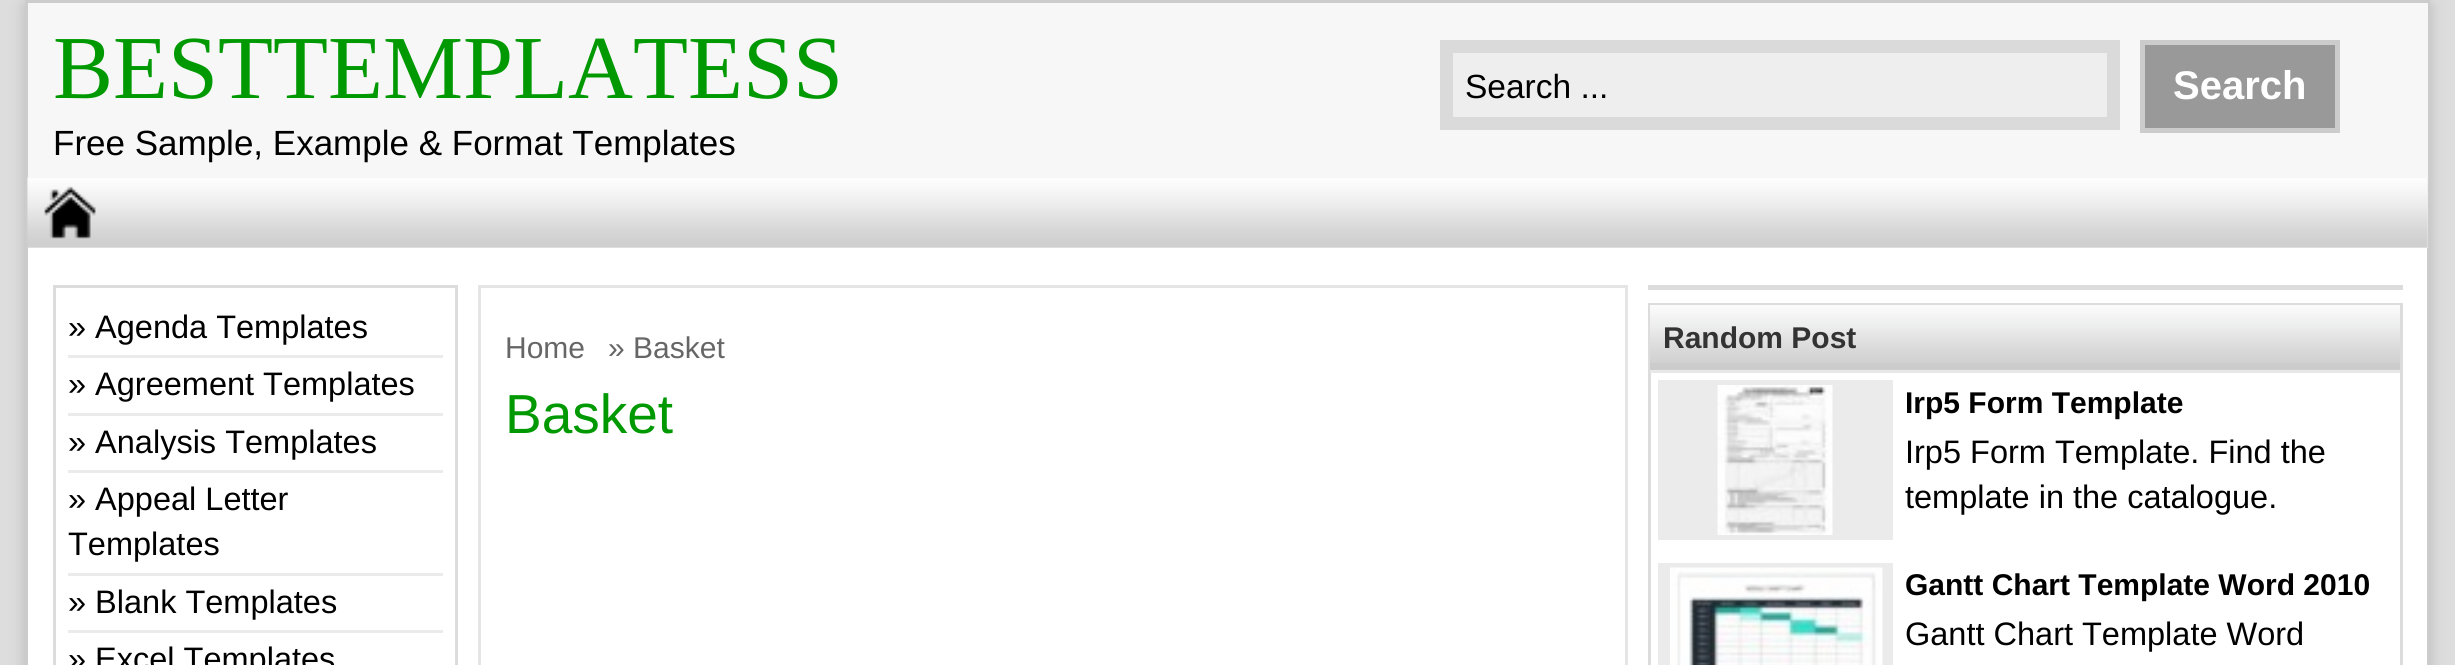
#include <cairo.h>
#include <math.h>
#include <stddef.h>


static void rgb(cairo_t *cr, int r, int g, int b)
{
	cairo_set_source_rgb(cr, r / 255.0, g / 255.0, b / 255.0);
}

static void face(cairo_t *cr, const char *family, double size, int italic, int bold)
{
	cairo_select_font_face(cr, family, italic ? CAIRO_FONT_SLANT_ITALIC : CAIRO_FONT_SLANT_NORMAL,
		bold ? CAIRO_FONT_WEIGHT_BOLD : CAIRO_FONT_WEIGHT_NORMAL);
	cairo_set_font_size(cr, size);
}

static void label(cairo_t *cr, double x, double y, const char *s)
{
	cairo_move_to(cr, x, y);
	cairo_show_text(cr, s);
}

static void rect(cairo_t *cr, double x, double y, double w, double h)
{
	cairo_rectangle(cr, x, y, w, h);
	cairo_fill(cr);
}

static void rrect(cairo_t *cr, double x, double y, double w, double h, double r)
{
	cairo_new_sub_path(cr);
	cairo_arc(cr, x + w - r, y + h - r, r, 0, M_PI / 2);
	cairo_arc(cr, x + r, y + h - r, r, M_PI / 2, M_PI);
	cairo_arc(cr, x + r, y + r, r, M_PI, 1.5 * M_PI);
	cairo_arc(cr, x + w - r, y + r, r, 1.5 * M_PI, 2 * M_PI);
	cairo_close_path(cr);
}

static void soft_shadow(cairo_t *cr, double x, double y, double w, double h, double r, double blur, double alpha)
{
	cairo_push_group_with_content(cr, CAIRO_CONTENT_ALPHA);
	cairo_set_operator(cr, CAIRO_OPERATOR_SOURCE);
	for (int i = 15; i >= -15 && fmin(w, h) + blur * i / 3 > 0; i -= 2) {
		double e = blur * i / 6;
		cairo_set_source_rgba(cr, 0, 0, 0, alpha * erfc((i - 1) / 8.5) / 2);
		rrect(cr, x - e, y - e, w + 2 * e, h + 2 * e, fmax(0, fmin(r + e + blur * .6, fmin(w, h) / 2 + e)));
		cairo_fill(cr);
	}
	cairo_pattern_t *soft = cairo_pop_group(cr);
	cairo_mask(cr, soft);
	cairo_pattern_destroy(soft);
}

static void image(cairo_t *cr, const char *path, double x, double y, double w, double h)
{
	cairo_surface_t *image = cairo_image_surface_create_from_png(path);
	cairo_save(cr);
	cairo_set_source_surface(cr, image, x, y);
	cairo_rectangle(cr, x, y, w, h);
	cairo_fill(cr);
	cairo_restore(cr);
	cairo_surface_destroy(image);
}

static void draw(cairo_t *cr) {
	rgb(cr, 221, 221, 221);
	cairo_paint(cr);
	rgb(cr, 100, 100, 100);
	soft_shadow(cr, 25, 5, 2405, 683, 0, 7.5, 0.3);
	rgb(cr, 255, 255, 255);
	rect(cr, 28, 248, 2399, 417);
	cairo_rectangle(cr, 26.5, 1.5, 2402, 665);
	rgb(cr, 204, 204, 204);
	cairo_set_line_width(cr, 3);
	cairo_stroke(cr);
	rgb(cr, 235, 235, 235);
	rect(cr, 28, 178, 2400, 70);
	image(cr, "image0.png", 27, 177, 2401, 71);
	rgb(cr, 247, 247, 247);
	rect(cr, 28, 3, 2400, 175);
	face(cr, "Liberation Serif", 90, 0, 0);
	rgb(cr, 0, 153, 2);
	label(cr, 53, 98, "BESTTEMPLATESS");
	face(cr, "Liberation Sans", 35, 0, 0);
	rgb(cr, 0, 0, 0);
	label(cr, 53, 155, "Free Sample, Example & Format Templates");
	rgb(cr, 238, 238, 238);
	cairo_rectangle(cr, 1446.5, 46.5, 667, 77);
	cairo_fill_preserve(cr);
	rgb(cr, 218, 218, 218);
	cairo_set_line_width(cr, 13);
	cairo_stroke(cr);
	face(cr, "Liberation Sans", 33.5, 0, 0);
	rgb(cr, 0, 0, 0);
	label(cr, 1465, 98, "Search ...");
	rgb(cr, 153, 153, 153);
	cairo_rectangle(cr, 2142.5, 42.5, 195, 88);
	cairo_fill_preserve(cr);
	rgb(cr, 204, 204, 204);
	cairo_set_line_width(cr, 5);
	cairo_stroke(cr);
	face(cr, "Liberation Sans", 40, 0, 1);
	rgb(cr, 255, 255, 255);
	label(cr, 2173, 99, "Search");
	image(cr, "image1.png", 44, 186, 52, 53);
	cairo_rectangle(cr, 54.5, 286.5, 402, 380);
	rgb(cr, 220, 220, 220);
	cairo_set_line_width(cr, 3);
	cairo_stroke(cr);
	rgb(cr, 235, 235, 235);
	rect(cr, 68, 355, 375, 3);
	face(cr, "Liberation Sans", 32.5, 0, 0);
	rgb(cr, 0, 0, 0);
	label(cr, 68, 338, "» Agenda Templates");
	rgb(cr, 235, 235, 235);
	rect(cr, 68, 413, 375, 3);
	rgb(cr, 0, 0, 0);
	label(cr, 68, 395, "» Agreement Templates");
	rgb(cr, 235, 235, 235);
	rect(cr, 68, 470, 375, 3);
	rgb(cr, 0, 0, 0);
	label(cr, 68, 453, "» Analysis Templates");
	rgb(cr, 235, 235, 235);
	rect(cr, 68, 573, 375, 3);
	rgb(cr, 0, 0, 0);
	label(cr, 68, 510, "» Appeal Letter");
	label(cr, 68, 555, "Templates");
	rgb(cr, 235, 235, 235);
	rect(cr, 68, 630, 375, 3);
	rgb(cr, 0, 0, 0);
	label(cr, 68, 613, "» Blank Templates");
	label(cr, 68, 670, "» Excel Templates");
	cairo_rectangle(cr, 479.5, 286.5, 1147, 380);
	rgb(cr, 229, 229, 229);
	cairo_stroke(cr);
	face(cr, "Liberation Sans", 30, 0, 0);
	rgb(cr, 102, 102, 102);
	label(cr, 505, 358, "Home");
	label(cr, 608, 358, "» Basket");
	face(cr, "Liberation Sans", 55, 0, 0);
	rgb(cr, 0, 153, 2);
	label(cr, 505, 433, "Basket");
	rgb(cr, 220, 220, 220);
	rect(cr, 1648, 285, 755, 5);
	cairo_rectangle(cr, 1649.5, 304.5, 752, 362);
	cairo_stroke(cr);
	rgb(cr, 204, 204, 204);
	rect(cr, 1650, 363, 750, 7);
	image(cr, "image2.png", 1650, 305, 750, 58);
	rgb(cr, 232, 232, 232);
	rect(cr, 1650, 370, 750, 3);
	face(cr, "Liberation Sans", 30, 0, 1);
	rgb(cr, 51, 51, 51);
	label(cr, 1663, 348, "Random Post");
	rgb(cr, 235, 235, 235);
	rect(cr, 1658, 380, 235, 160);
	image(cr, "image3.png", 1717, 385, 116, 150);
	rgb(cr, 0, 0, 0);
	label(cr, 1905, 413, "Irp5 Form Template");
	face(cr, "Liberation Sans", 32.5, 0, 0);
	label(cr, 1905, 463, "Irp5 Form Template. Find the");
	label(cr, 1905, 508, "template in the catalogue.");
	rgb(cr, 235, 235, 235);
	rect(cr, 1658, 563, 235, 102);
	image(cr, "image4.png", 1670, 567, 213, 98);
	face(cr, "Liberation Sans", 30, 0, 1);
	rgb(cr, 0, 0, 0);
	label(cr, 1905, 595, "Gantt Chart Template Word 2010");
	face(cr, "Liberation Sans", 32.5, 0, 0);
	label(cr, 1905, 645, "Gantt Chart Template Word");
}

int main(void) {
	cairo_surface_t *surface = cairo_image_surface_create(CAIRO_FORMAT_RGB24, 2455, 665);
	cairo_t *cr = cairo_create(surface);
	cairo_font_options_t *options = cairo_font_options_create();
	cairo_font_options_set_hint_metrics(options, CAIRO_HINT_METRICS_OFF);
	cairo_font_options_set_hint_style(options, CAIRO_HINT_STYLE_NONE);
	cairo_set_font_options(cr, options);
	cairo_set_miter_limit(cr, 4);
	draw(cr);
	cairo_surface_write_to_png(surface, "render.png");
	cairo_font_options_destroy(options);
	cairo_destroy(cr);
	cairo_surface_destroy(surface);
	return 0;
}
